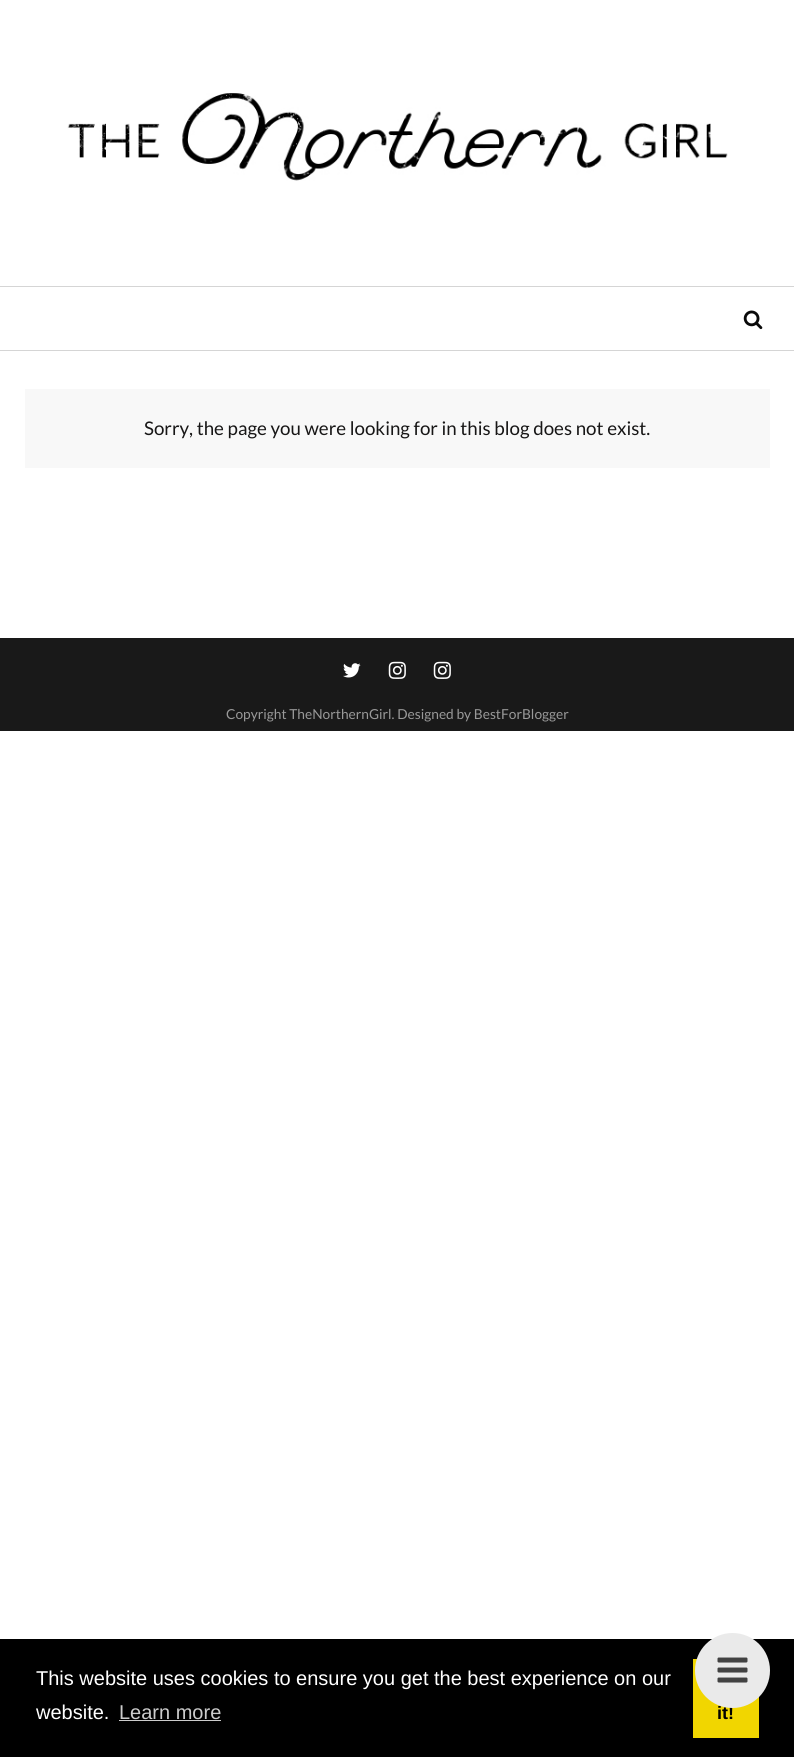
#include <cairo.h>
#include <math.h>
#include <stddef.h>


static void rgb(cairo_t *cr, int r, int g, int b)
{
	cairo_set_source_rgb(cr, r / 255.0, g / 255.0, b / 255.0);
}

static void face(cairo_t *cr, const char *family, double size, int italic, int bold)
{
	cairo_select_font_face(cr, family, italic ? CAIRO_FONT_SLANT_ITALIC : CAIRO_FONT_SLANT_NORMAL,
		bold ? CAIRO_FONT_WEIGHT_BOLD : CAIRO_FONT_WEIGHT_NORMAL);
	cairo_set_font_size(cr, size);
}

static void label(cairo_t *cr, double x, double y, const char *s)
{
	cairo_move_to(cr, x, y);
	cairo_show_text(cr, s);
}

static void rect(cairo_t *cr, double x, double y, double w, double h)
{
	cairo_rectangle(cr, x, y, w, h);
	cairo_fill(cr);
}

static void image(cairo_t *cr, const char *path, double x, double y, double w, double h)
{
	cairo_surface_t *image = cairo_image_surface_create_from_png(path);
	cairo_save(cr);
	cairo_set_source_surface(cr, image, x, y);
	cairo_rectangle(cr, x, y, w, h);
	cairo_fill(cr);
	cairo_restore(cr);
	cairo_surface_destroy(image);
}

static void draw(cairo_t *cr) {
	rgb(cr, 255, 255, 255);
	cairo_paint(cr);
	image(cr, "image0.png", 67, 93, 661, 88);
	rgb(cr, 213, 213, 213);
	rect(cr, 0, 286, 794, 1);
	rect(cr, 0, 350, 794, 1);
	image(cr, "image1.png", 743, 310, 20, 20);
	rgb(cr, 248, 248, 248);
	rect(cr, 25, 389, 745, 79);
	face(cr, "Lato", 18.75, 0, 0);
	rgb(cr, 23, 22, 22);
	label(cr, 144, 435, "Sorry, the page you were looking for in this blog does not exist.");
	rgb(cr, 25, 25, 25);
	rect(cr, 0, 638, 794, 93);
	image(cr, "image2.png", 343, 663, 18, 15);
	image(cr, "image3.png", 388, 661, 18, 18);
	image(cr, "image3.png", 433, 661, 18, 18);
	face(cr, "Lato", 13.75, 0, 0);
	rgb(cr, 153, 153, 153);
	label(cr, 226, 719, "Copyright TheNorthernGirl. Designed by BestForBlogger");
	rgb(cr, 0, 0, 0);
	rect(cr, 0, 1639, 794, 118);
	rgb(cr, 241, 214, 0);
	rect(cr, 693, 1659, 66, 79);
	face(cr, "Liberation Sans", 18, 0, 1);
	rgb(cr, 0, 0, 0);
	label(cr, 717, 1719, "it!");
	rgb(cr, 234, 234, 234);
	cairo_new_path(cr);
	cairo_arc(cr, 732.5, 1670.5, 37.5, 0, 2 * M_PI);
	cairo_fill(cr);
	image(cr, "image4.png", 717, 1657, 31, 26);
	face(cr, "Liberation Sans", 20, 0, 0);
	rgb(cr, 255, 255, 255);
	label(cr, 36, 1685, "This website uses cookies to ensure you get the best experience on our");
	label(cr, 36, 1719, "website.");
	rgb(cr, 204, 204, 204);
	label(cr, 119, 1719, "Learn more");
	rect(cr, 119, 1720, 102, 1);
}

int main(void) {
	cairo_surface_t *surface = cairo_image_surface_create(CAIRO_FORMAT_RGB24, 794, 1757);
	cairo_t *cr = cairo_create(surface);
	cairo_font_options_t *options = cairo_font_options_create();
	cairo_font_options_set_hint_metrics(options, CAIRO_HINT_METRICS_OFF);
	cairo_font_options_set_hint_style(options, CAIRO_HINT_STYLE_NONE);
	cairo_set_font_options(cr, options);
	cairo_set_miter_limit(cr, 4);
	draw(cr);
	cairo_surface_write_to_png(surface, "render.png");
	cairo_font_options_destroy(options);
	cairo_destroy(cr);
	cairo_surface_destroy(surface);
	return 0;
}
